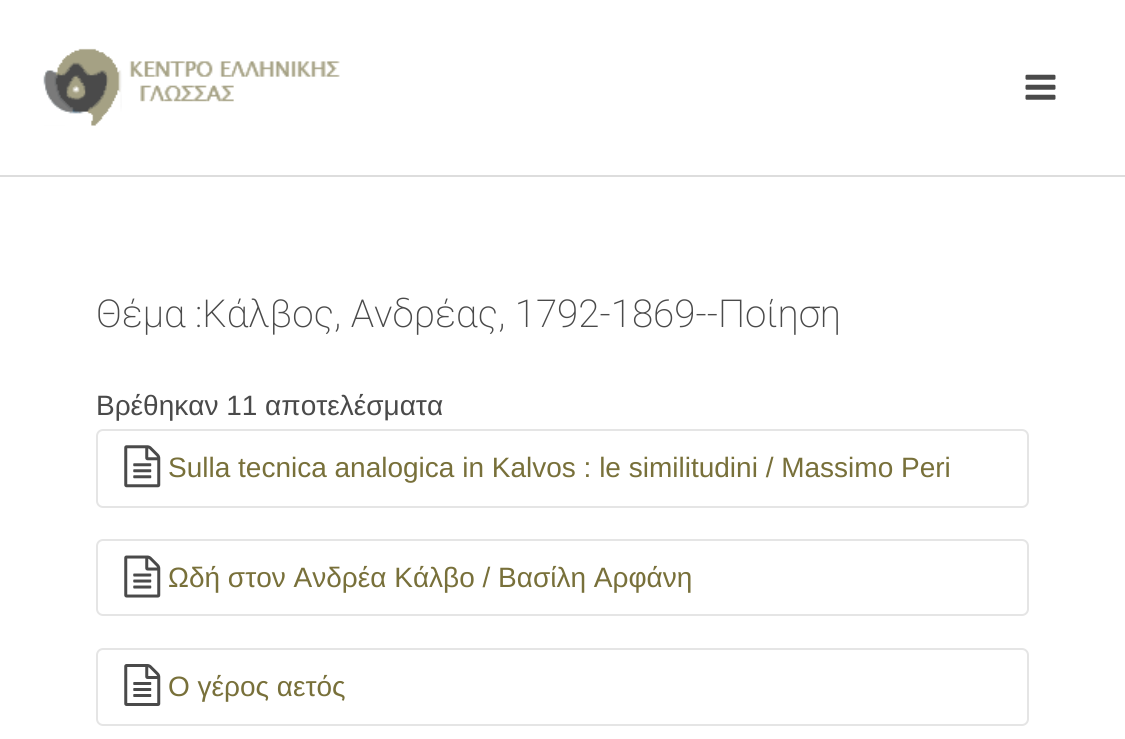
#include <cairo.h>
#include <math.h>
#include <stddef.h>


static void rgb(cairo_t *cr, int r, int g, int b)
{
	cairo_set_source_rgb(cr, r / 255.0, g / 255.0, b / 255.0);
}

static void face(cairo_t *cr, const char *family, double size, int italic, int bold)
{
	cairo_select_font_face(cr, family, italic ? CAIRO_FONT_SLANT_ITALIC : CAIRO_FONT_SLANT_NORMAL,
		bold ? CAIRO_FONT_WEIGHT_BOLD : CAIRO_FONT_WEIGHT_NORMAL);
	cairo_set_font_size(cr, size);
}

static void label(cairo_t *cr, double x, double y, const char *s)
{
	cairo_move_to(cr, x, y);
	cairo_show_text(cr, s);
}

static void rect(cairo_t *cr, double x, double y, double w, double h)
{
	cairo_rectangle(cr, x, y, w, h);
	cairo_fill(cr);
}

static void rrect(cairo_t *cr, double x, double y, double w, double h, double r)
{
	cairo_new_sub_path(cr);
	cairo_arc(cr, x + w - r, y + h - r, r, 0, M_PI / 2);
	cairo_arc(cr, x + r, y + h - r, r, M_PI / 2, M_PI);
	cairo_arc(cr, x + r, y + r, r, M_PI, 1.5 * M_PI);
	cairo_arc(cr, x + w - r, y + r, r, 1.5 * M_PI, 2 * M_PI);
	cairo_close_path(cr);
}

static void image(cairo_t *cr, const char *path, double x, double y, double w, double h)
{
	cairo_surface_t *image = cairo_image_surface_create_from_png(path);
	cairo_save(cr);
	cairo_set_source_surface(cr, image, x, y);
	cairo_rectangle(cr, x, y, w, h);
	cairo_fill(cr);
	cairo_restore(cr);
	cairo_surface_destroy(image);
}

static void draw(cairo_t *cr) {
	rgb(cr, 255, 255, 255);
	cairo_paint(cr);
	image(cr, "image0.png", 43, 48, 297, 78);
	image(cr, "image1.png", 1025, 74, 31, 26);
	rgb(cr, 221, 221, 221);
	rect(cr, 0, 175, 1125, 2);
	face(cr, "Roboto ExtraLight", 38.5, 0, 0);
	rgb(cr, 74, 74, 74);
	label(cr, 96, 327, "Θέμα :Κάλβος, Ανδρέας, 1792-1869--Ποίηση");
	face(cr, "Liberation Sans", 28, 0, 0);
	label(cr, 96, 415, "Βρέθηκαν 11 αποτελέσματα");
	rrect(cr, 97, 430, 931, 77, 6);
	rgb(cr, 229, 229, 229);
	cairo_stroke(cr);
	image(cr, "image2.png", 124, 445, 37, 43);
	rgb(cr, 120, 112, 58);
	label(cr, 168, 477, "Sulla tecnica analogica in Kalvos : le similitudini / Massimo Peri");
	rrect(cr, 97, 540, 931, 75, 6);
	rgb(cr, 229, 229, 229);
	cairo_stroke(cr);
	image(cr, "image3.png", 124, 555, 37, 43);
	rgb(cr, 120, 112, 58);
	label(cr, 168, 587, "Ωδή στον Ανδρέα Κάλβο / Βασίλη Αρφάνη");
	rrect(cr, 97, 649, 931, 76, 6);
	rgb(cr, 229, 229, 229);
	cairo_stroke(cr);
	image(cr, "image4.png", 124, 664, 37, 42);
	rgb(cr, 120, 112, 58);
	label(cr, 168, 696, "Ο γέρος αετός");
}

int main(void) {
	cairo_surface_t *surface = cairo_image_surface_create(CAIRO_FORMAT_RGB24, 1125, 739);
	cairo_t *cr = cairo_create(surface);
	cairo_font_options_t *options = cairo_font_options_create();
	cairo_font_options_set_hint_metrics(options, CAIRO_HINT_METRICS_OFF);
	cairo_font_options_set_hint_style(options, CAIRO_HINT_STYLE_NONE);
	cairo_set_font_options(cr, options);
	cairo_set_miter_limit(cr, 4);
	draw(cr);
	cairo_surface_write_to_png(surface, "render.png");
	cairo_font_options_destroy(options);
	cairo_destroy(cr);
	cairo_surface_destroy(surface);
	return 0;
}
